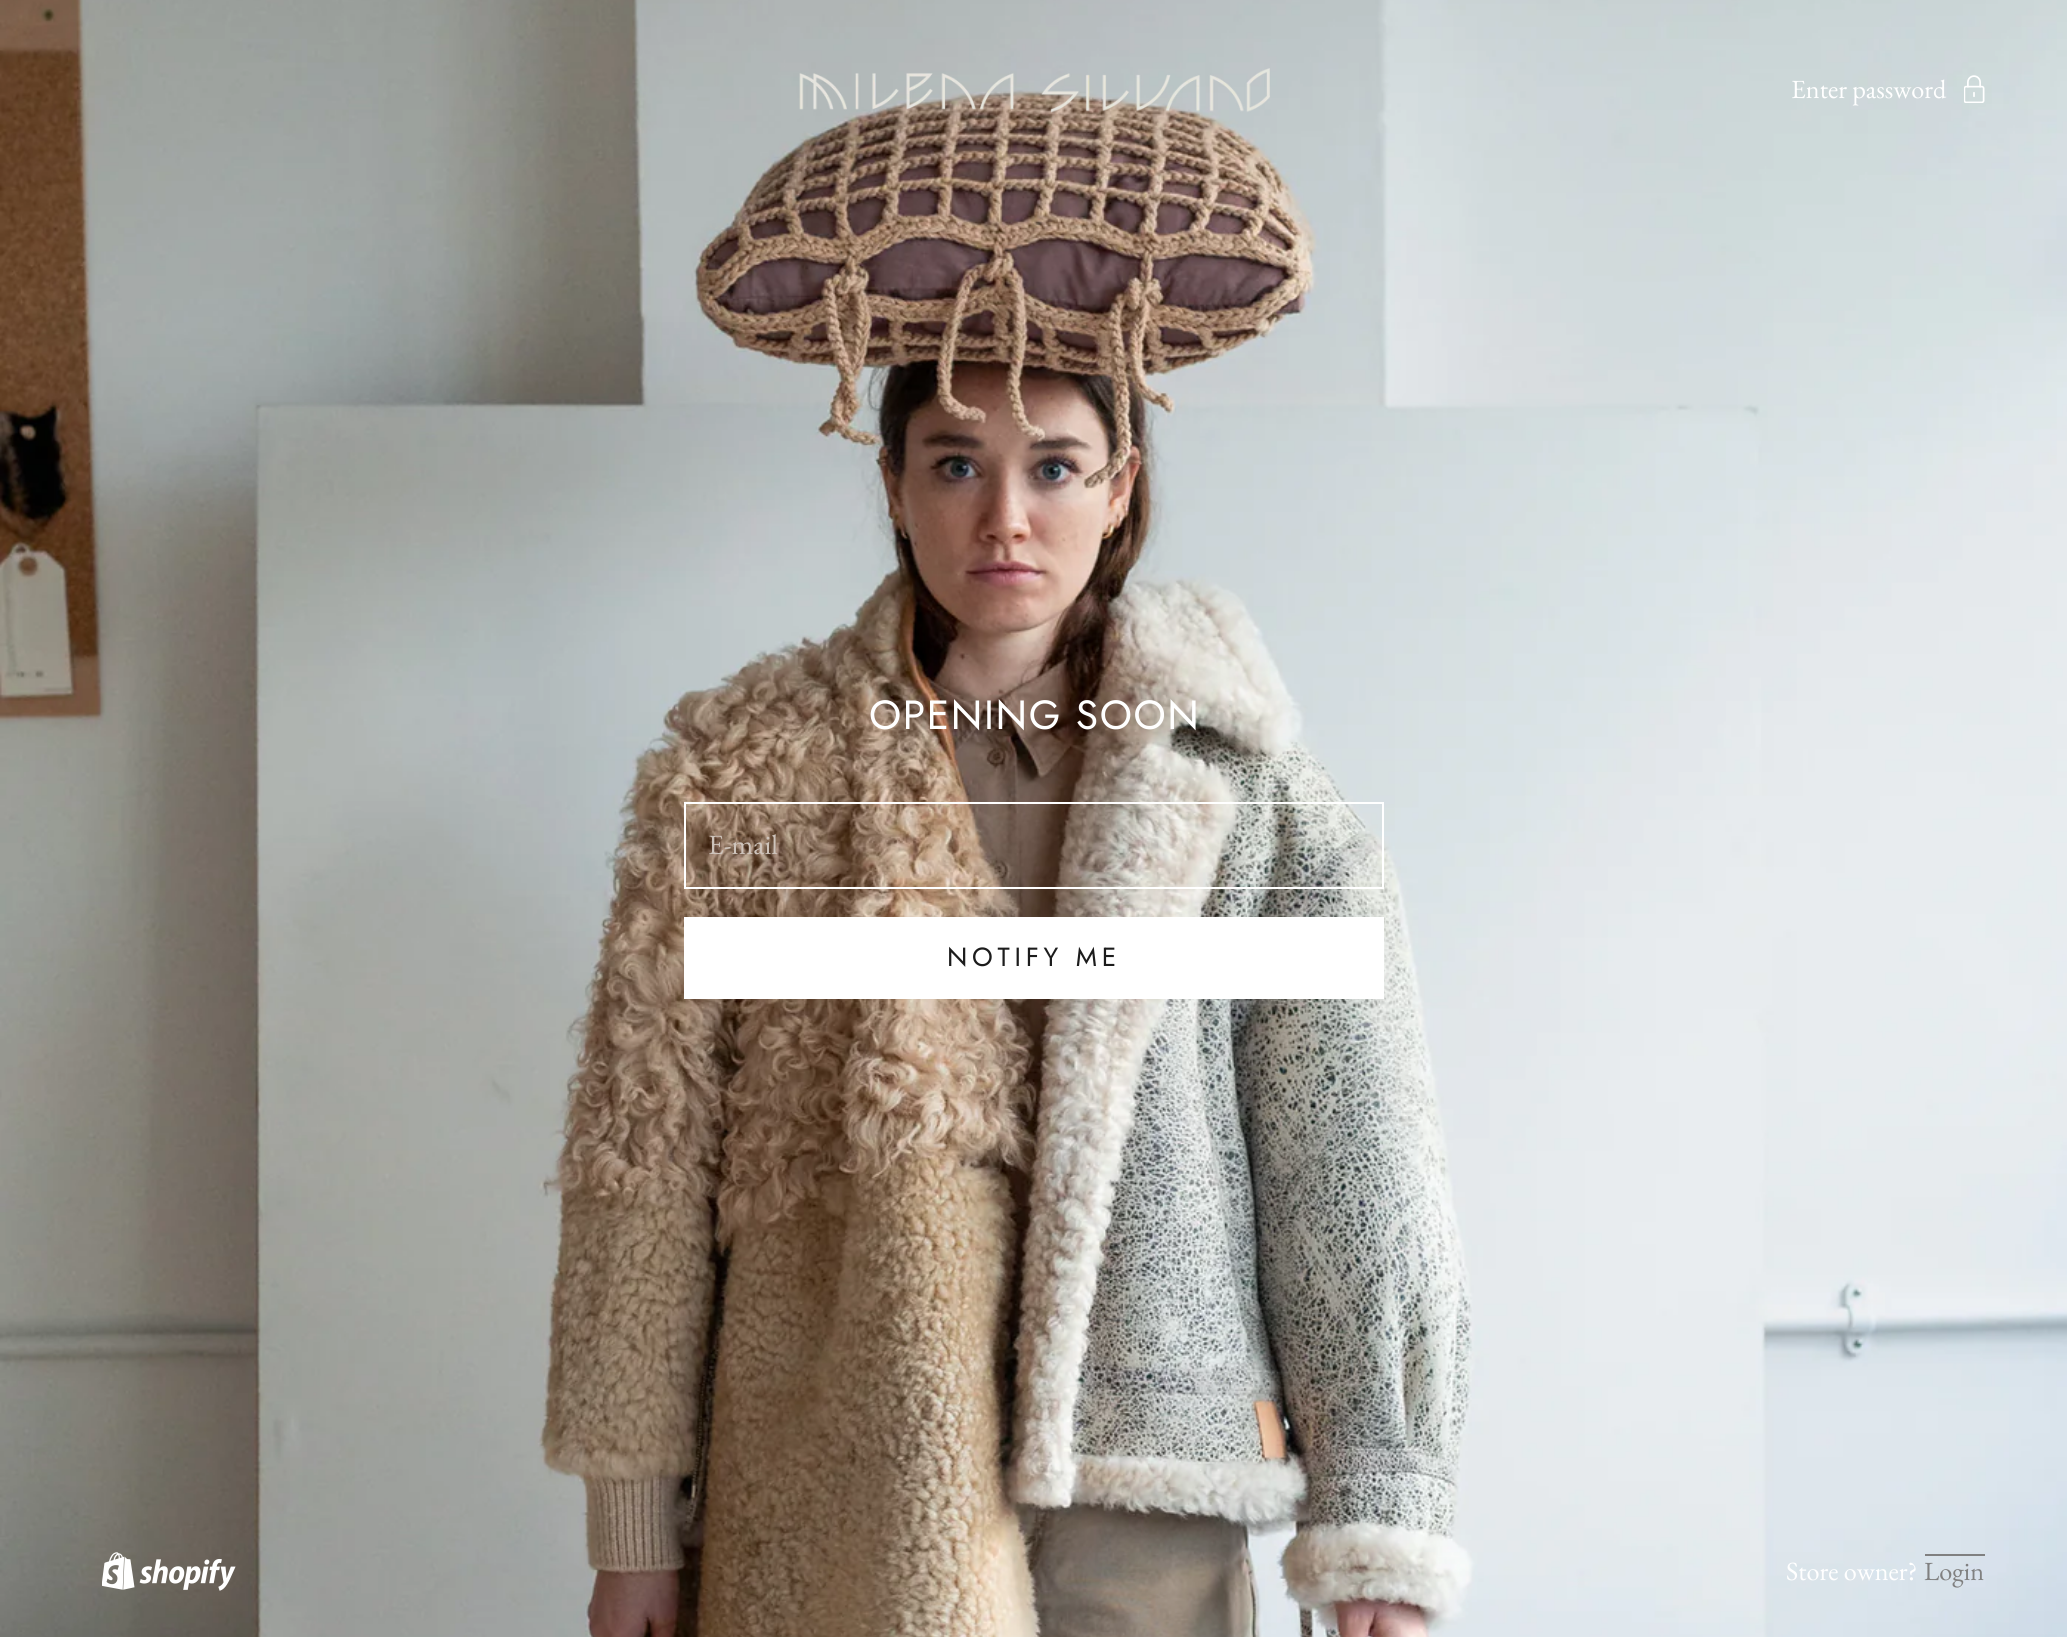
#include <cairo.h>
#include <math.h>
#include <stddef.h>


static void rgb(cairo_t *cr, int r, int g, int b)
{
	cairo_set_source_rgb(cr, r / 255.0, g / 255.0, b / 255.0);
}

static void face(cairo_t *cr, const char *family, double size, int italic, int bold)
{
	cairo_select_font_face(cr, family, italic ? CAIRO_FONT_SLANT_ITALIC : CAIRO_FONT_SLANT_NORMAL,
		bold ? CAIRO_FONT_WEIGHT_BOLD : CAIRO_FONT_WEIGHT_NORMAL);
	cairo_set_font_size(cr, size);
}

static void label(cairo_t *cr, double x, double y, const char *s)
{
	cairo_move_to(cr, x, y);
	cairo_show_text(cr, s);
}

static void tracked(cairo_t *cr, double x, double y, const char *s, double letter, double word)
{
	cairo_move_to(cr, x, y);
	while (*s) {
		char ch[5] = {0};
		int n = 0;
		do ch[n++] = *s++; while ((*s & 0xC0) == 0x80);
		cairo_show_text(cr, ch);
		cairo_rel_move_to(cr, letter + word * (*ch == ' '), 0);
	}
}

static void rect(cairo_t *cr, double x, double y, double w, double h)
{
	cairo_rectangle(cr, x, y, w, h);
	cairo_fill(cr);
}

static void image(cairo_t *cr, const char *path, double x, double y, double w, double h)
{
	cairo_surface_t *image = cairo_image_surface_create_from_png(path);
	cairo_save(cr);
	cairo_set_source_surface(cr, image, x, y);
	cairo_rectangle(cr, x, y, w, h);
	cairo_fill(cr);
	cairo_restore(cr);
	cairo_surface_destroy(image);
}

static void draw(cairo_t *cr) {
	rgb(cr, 255, 255, 255);
	cairo_paint(cr);
	image(cr, "image0.png", 0, 0, 2067, 1637);
	image(cr, "image1.png", 799, 68, 471, 45);
	face(cr, "EB Garamond", 26.25, 0, 0);
	rgb(cr, 255, 255, 255);
	label(cr, 1791, 98, "Enter password");
	image(cr, "image2.png", 1964, 75, 21, 28);
	face(cr, "Jost", 40.75, 0, 0);
	tracked(cr, 869, 729, "OPENING SOON", 1.6, 0);
	cairo_rectangle(cr, 685, 803, 698, 85);
	cairo_stroke(cr);
	face(cr, "EB Garamond", 28, 0, 0);
	rgb(cr, 206, 196, 188);
	label(cr, 708, 854, "E-mail");
	rgb(cr, 255, 255, 255);
	cairo_rectangle(cr, 685, 918, 698, 80);
	cairo_fill_preserve(cr);
	cairo_stroke(cr);
	face(cr, "Jost", 26.25, 0, 0);
	rgb(cr, 28, 28, 28);
	tracked(cr, 947, 966, "NOTIFY ME", 4.75, 0);
	image(cr, "image3.png", 102, 1552, 134, 39);
	face(cr, "EB Garamond", 26.25, 0, 0);
	rgb(cr, 255, 255, 255);
	label(cr, 1786, 1580, "Store owner?");
	rgb(cr, 128, 128, 128);
	label(cr, 1924, 1580, "Login");
	rect(cr, 1925, 1554, 60, 2);
}

int main(void) {
	cairo_surface_t *surface = cairo_image_surface_create(CAIRO_FORMAT_RGB24, 2067, 1637);
	cairo_t *cr = cairo_create(surface);
	cairo_font_options_t *options = cairo_font_options_create();
	cairo_font_options_set_hint_metrics(options, CAIRO_HINT_METRICS_OFF);
	cairo_font_options_set_hint_style(options, CAIRO_HINT_STYLE_NONE);
	cairo_set_font_options(cr, options);
	cairo_set_miter_limit(cr, 4);
	draw(cr);
	cairo_surface_write_to_png(surface, "render.png");
	cairo_font_options_destroy(options);
	cairo_destroy(cr);
	cairo_surface_destroy(surface);
	return 0;
}
